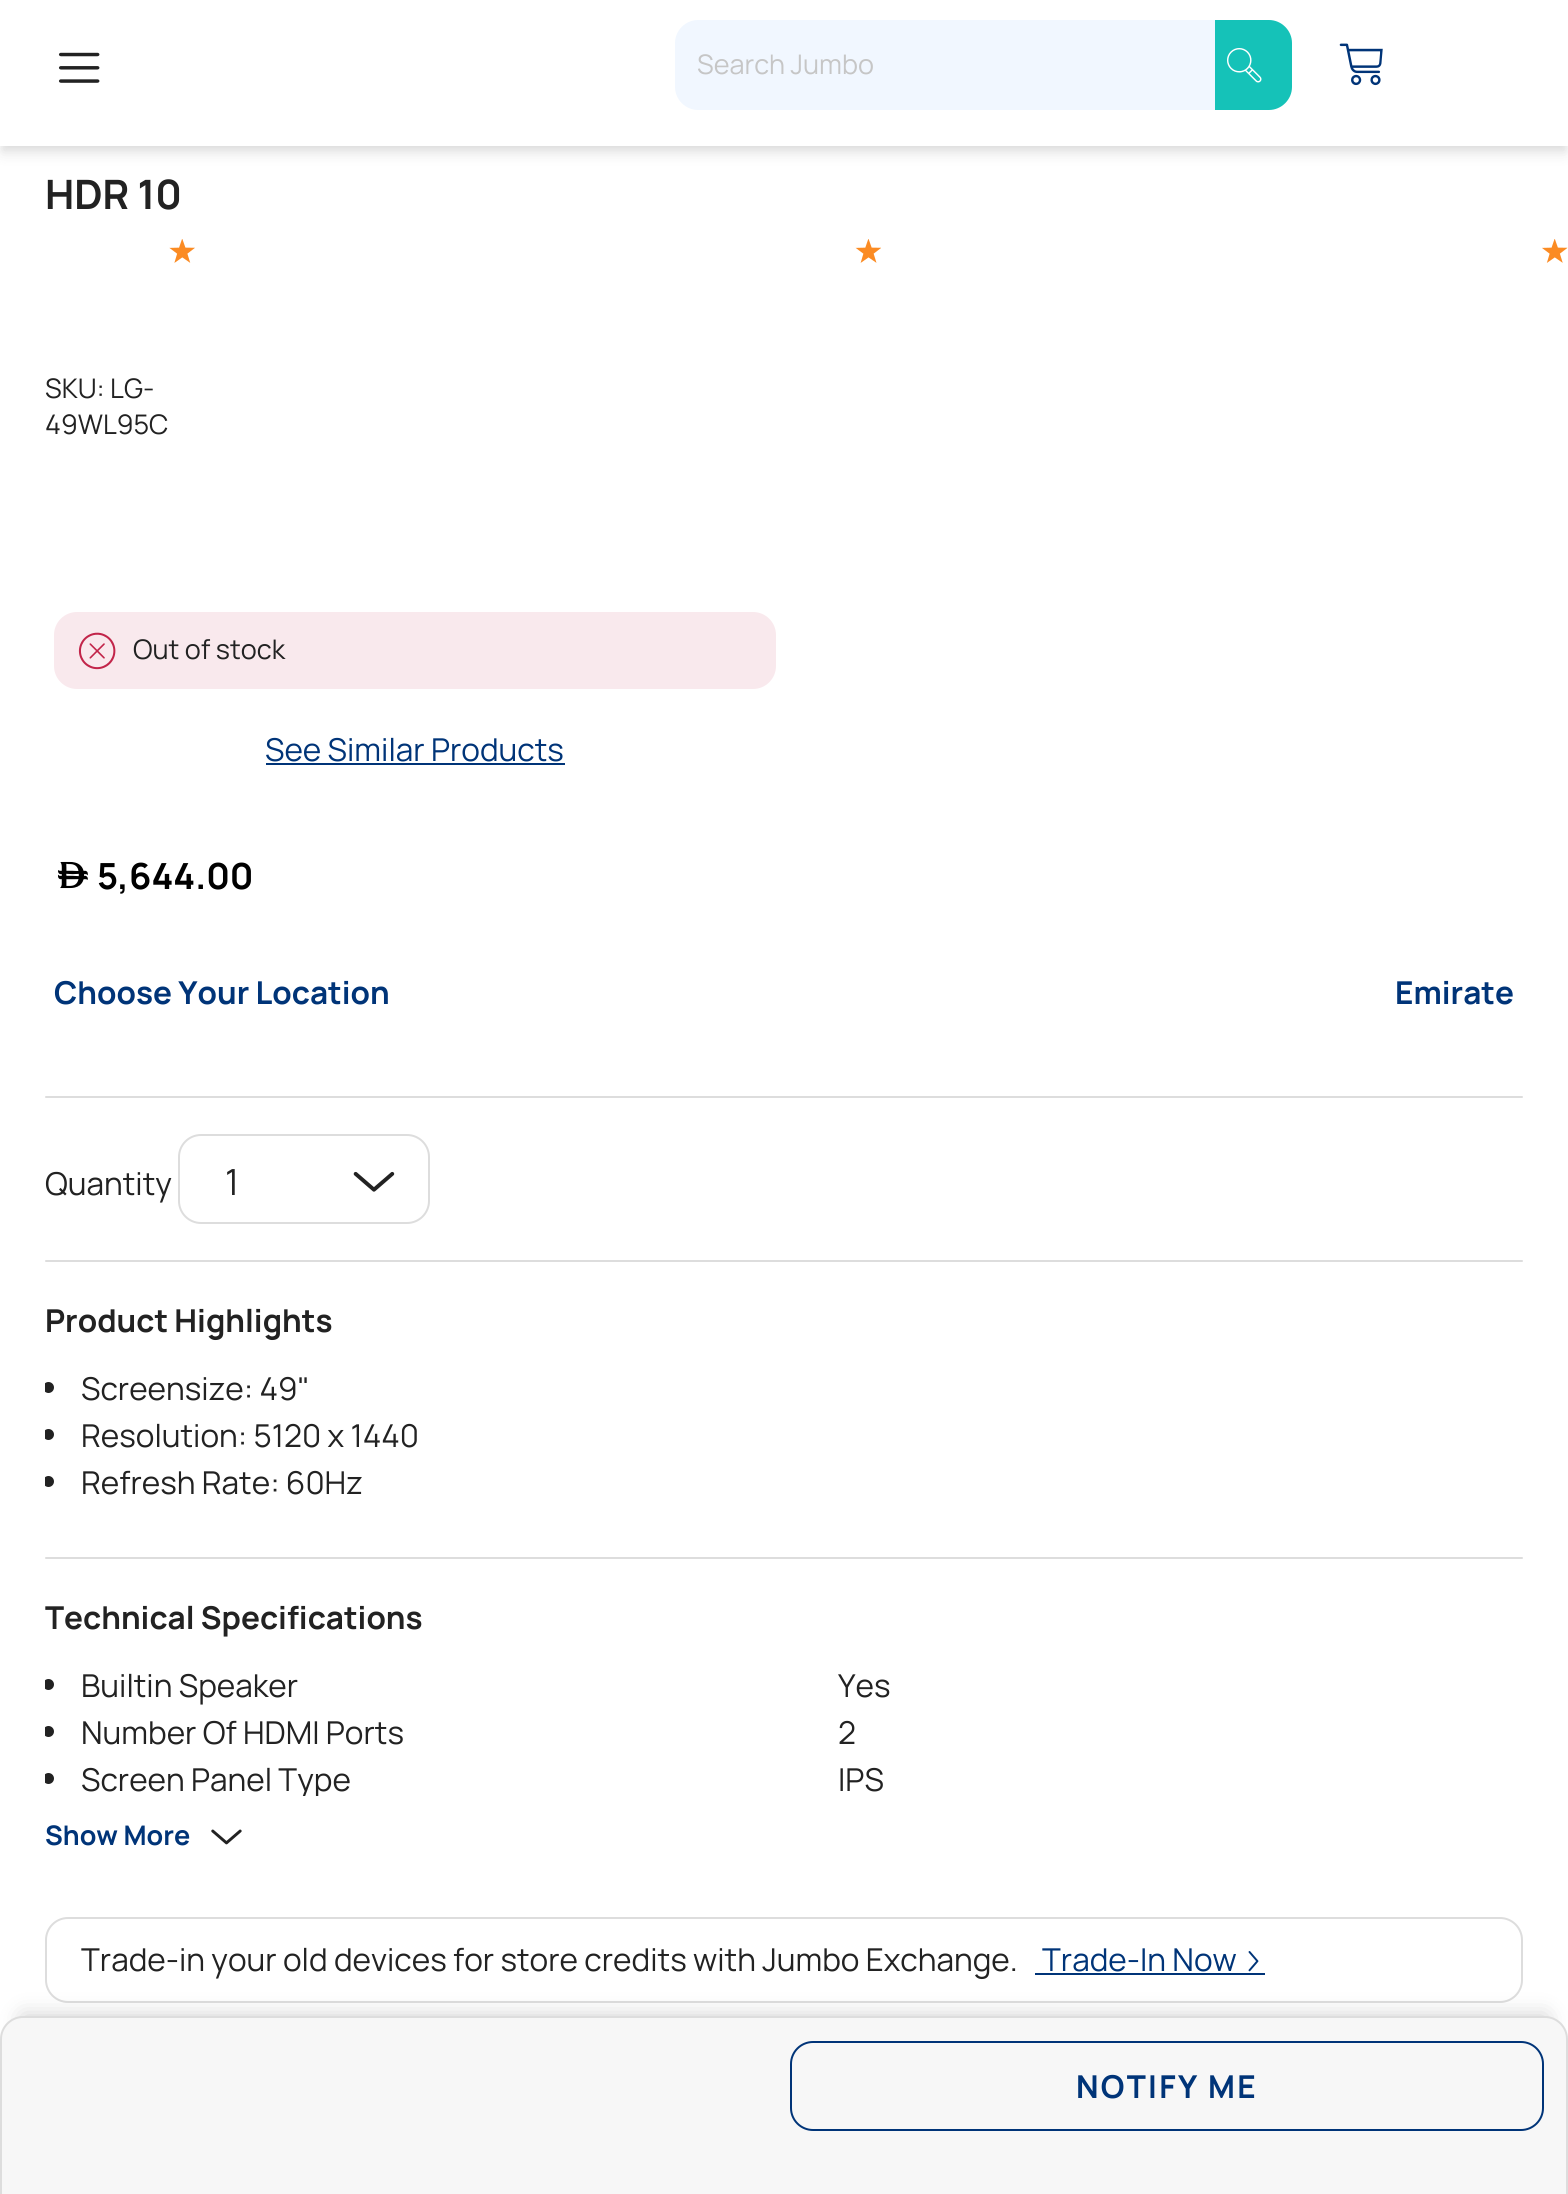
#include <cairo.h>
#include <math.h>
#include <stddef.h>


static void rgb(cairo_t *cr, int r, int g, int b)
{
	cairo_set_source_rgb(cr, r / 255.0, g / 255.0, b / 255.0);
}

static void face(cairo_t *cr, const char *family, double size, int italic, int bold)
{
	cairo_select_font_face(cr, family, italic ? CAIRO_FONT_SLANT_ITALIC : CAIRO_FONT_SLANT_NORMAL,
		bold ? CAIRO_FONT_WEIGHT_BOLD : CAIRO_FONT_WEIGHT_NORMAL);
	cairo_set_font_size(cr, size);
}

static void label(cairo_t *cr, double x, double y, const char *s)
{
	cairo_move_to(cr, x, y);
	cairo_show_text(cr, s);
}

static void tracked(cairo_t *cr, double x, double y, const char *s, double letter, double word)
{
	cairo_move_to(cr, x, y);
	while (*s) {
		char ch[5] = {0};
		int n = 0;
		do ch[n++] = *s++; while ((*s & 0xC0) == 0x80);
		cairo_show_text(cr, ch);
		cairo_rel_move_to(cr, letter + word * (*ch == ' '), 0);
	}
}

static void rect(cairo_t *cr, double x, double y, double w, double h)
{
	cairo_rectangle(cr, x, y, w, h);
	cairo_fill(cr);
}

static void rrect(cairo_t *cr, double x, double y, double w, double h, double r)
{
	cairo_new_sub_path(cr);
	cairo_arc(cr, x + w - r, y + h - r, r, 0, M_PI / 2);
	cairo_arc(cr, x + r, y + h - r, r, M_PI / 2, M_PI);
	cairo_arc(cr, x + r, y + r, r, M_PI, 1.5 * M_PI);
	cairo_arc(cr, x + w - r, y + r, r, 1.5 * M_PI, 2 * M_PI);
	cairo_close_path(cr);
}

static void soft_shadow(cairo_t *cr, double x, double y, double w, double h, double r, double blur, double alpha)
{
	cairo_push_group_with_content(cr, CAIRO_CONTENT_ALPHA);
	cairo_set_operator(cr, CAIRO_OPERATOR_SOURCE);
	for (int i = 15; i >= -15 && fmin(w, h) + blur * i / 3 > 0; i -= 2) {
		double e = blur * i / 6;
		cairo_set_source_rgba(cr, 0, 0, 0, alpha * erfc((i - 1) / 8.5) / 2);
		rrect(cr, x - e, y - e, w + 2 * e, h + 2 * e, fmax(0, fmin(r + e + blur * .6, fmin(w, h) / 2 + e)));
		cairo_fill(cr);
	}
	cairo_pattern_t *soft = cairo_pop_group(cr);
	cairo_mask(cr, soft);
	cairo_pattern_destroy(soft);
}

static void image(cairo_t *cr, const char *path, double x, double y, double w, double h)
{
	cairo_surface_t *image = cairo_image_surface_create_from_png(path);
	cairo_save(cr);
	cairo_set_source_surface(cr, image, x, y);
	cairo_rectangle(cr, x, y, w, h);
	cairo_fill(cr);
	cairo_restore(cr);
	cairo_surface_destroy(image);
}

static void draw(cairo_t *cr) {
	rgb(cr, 255, 255, 255);
	cairo_paint(cr);
	rgb(cr, 0, 0, 0);
	soft_shadow(cr, 2, 7, 1564, 142, 0, 4.5, 0.06);
	soft_shadow(cr, 2, 11, 1564, 142, 0, 7, 0.1);
	rgb(cr, 255, 255, 255);
	rect(cr, 0, 0, 1568, 146);
	image(cr, "image0.png", 58, 52, 42, 31);
	rgb(cr, 241, 247, 255);
	cairo_new_path(cr);
	cairo_move_to(cr, 698, 20);
	cairo_line_to(cr, 1215, 20);
	cairo_line_to(cr, 1215, 110);
	cairo_line_to(cr, 698, 110);
	cairo_curve_to(cr, 685.5, 110, 675, 99.5, 675, 87);
	cairo_line_to(cr, 675, 43);
	cairo_curve_to(cr, 675, 30.5, 685.5, 20, 698, 20);
	cairo_close_path(cr);
	cairo_fill(cr);
	face(cr, "Manrope", 27, 0, 0);
	rgb(cr, 198, 198, 198);
	label(cr, 697, 74, "Search Jumbo");
	rgb(cr, 21, 194, 184);
	cairo_new_path(cr);
	cairo_move_to(cr, 1215, 20);
	cairo_line_to(cr, 1269, 20);
	cairo_curve_to(cr, 1281.5, 20, 1292, 30.5, 1292, 43);
	cairo_line_to(cr, 1292, 87);
	cairo_curve_to(cr, 1292, 99.5, 1281.5, 110, 1269, 110);
	cairo_line_to(cr, 1215, 110);
	cairo_close_path(cr);
	cairo_fill(cr);
	image(cr, "image1.png", 1227, 48, 35, 35);
	image(cr, "image2.png", 1339, 43, 44, 43);
	face(cr, "Manrope", 40.5, 0, 1);
	rgb(cr, 34, 34, 34);
	label(cr, 45, 209, "HDR 10");
	image(cr, "image3.png", 169, 239, 26, 24);
	image(cr, "image4.png", 855, 239, 26, 24);
	image(cr, "image5.png", 1542, 239, 26, 24);
	face(cr, "Manrope", 27, 0, 0);
	label(cr, 45, 398, "SKU: LG-");
	label(cr, 45, 434, "49WL95C");
	rgb(cr, 249, 233, 237);
	rrect(cr, 54, 612, 722, 77, 23);
	cairo_fill(cr);
	image(cr, "image6.png", 78, 632, 38, 38);
	rgb(cr, 34, 34, 34);
	label(cr, 133, 659, "Out of stock");
	face(cr, "Manrope", 31.5, 0, 0);
	rgb(cr, 0, 52, 120);
	label(cr, 265, 761, "See Similar Products");
	rect(cr, 266, 763, 299, 2);
	face(cr, "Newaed", 29, 0, 1);
	rgb(cr, 0, 0, 0);
	label(cr, 58, 886, "D");
	face(cr, "Manrope", 36, 0, 1);
	label(cr, 97, 889, "5,644.00");
	face(cr, "Manrope", 31.5, 0, 1);
	rgb(cr, 0, 52, 120);
	label(cr, 54, 1004, "Choose Your Location");
	label(cr, 1395, 1004, "Emirate");
	rgb(cr, 221, 221, 221);
	rrect(cr, 45, 1096, 1478, 2, 1);
	cairo_fill(cr);
	face(cr, "Manrope", 31.5, 0, 0);
	rgb(cr, 34, 34, 34);
	label(cr, 45, 1195, "Quantity");
	rrect(cr, 179, 1135, 250, 88, 22);
	rgb(cr, 221, 221, 221);
	cairo_stroke(cr);
	face(cr, "Manrope", 36, 0, 0);
	rgb(cr, 34, 34, 34);
	label(cr, 225, 1195, "1");
	image(cr, "image7.png", 353, 1171, 42, 21);
	rgb(cr, 221, 221, 221);
	rrect(cr, 45, 1260, 1478, 2, 1);
	cairo_fill(cr);
	face(cr, "Manrope", 31.5, 0, 1);
	rgb(cr, 34, 34, 34);
	label(cr, 45, 1332, "Product Highlights");
	cairo_save(cr);
	cairo_rectangle(cr, 45, 1364, 1478, 135);
	cairo_clip(cr);
	cairo_arc(cr, 48.5, 1387.5, 5.5, 0, 2 * M_PI);
	cairo_fill(cr);
	cairo_restore(cr);
	face(cr, "Manrope", 31.5, 0, 0);
	label(cr, 81, 1400, "Screensize: 49\"");
	cairo_save(cr);
	cairo_rectangle(cr, 45, 1364, 1478, 135);
	cairo_clip(cr);
	cairo_arc(cr, 48.5, 1434.5, 5.5, 0, 2 * M_PI);
	cairo_fill(cr);
	cairo_restore(cr);
	label(cr, 81, 1447, "Resolution: 5120 x 1440");
	cairo_save(cr);
	cairo_rectangle(cr, 45, 1364, 1478, 135);
	cairo_clip(cr);
	cairo_arc(cr, 48.5, 1481.5, 5.5, 0, 2 * M_PI);
	cairo_fill(cr);
	cairo_restore(cr);
	label(cr, 81, 1494, "Refresh Rate: 60Hz");
	rgb(cr, 221, 221, 221);
	rrect(cr, 45, 1557, 1478, 2, 1);
	cairo_fill(cr);
	face(cr, "Manrope", 31.5, 0, 1);
	rgb(cr, 34, 34, 34);
	label(cr, 45, 1629, "Technical Specifications");
	cairo_save(cr);
	cairo_rectangle(cr, 45, 1661, 1478, 135);
	cairo_clip(cr);
	cairo_arc(cr, 48.5, 1684.5, 5.5, 0, 2 * M_PI);
	cairo_fill(cr);
	cairo_restore(cr);
	face(cr, "Manrope", 31.5, 0, 0);
	label(cr, 81, 1697, "Builtin Speaker");
	label(cr, 838, 1697, "Yes");
	cairo_save(cr);
	cairo_rectangle(cr, 45, 1661, 1478, 135);
	cairo_clip(cr);
	cairo_arc(cr, 48.5, 1731.5, 5.5, 0, 2 * M_PI);
	cairo_fill(cr);
	cairo_restore(cr);
	label(cr, 81, 1744, "Number Of HDMI Ports");
	label(cr, 838, 1744, "2");
	cairo_save(cr);
	cairo_rectangle(cr, 45, 1661, 1478, 135);
	cairo_clip(cr);
	cairo_arc(cr, 48.5, 1778.5, 5.5, 0, 2 * M_PI);
	cairo_fill(cr);
	label(cr, 81, 1791, "Screen Panel Type");
	cairo_restore(cr);
	label(cr, 838, 1791, "IPS");
	face(cr, "Manrope", 27, 0, 1);
	rgb(cr, 0, 52, 120);
	label(cr, 45, 1845, "Show More");
	image(cr, "image8.png", 211, 1829, 31, 16);
	rrect(cr, 46, 1918, 1476, 84, 22);
	rgb(cr, 221, 221, 221);
	cairo_stroke(cr);
	face(cr, "Manrope", 31.5, 0, 0);
	rgb(cr, 34, 34, 34);
	label(cr, 81, 1971, "Trade-in your old devices for store credits with Jumbo Exchange.");
	rgb(cr, 0, 52, 120);
	label(cr, 1042, 1971, "Trade-In Now");
	rect(cr, 1035, 1973, 230, 2);
	image(cr, "image9.png", 1248, 1951, 11, 21);
	rgb(cr, 0, 0, 0);
	soft_shadow(cr, 23, 2016, 1523, 135, 0, 11, 0.2);
	rgb(cr, 247, 247, 247);
	cairo_new_path(cr);
	cairo_move_to(cr, 23, 2017);
	cairo_line_to(cr, 1545, 2017);
	cairo_curve_to(cr, 1557, 2017, 1567, 2027, 1567, 2039);
	cairo_line_to(cr, 1567, 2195);
	cairo_line_to(cr, 1, 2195);
	cairo_line_to(cr, 1, 2039);
	cairo_curve_to(cr, 1, 2027, 11, 2017, 23, 2017);
	cairo_close_path(cr);
	cairo_fill_preserve(cr);
	rgb(cr, 221, 221, 221);
	cairo_stroke(cr);
	rrect(cr, 791, 2042, 752, 88, 22);
	rgb(cr, 0, 52, 120);
	cairo_stroke(cr);
	face(cr, "Manrope", 31.5, 0, 1);
	tracked(cr, 1076, 2098, "NOTIFY ME", 2.25, 0);
}

int main(void) {
	cairo_surface_t *surface = cairo_image_surface_create(CAIRO_FORMAT_RGB24, 1568, 2194);
	cairo_t *cr = cairo_create(surface);
	cairo_font_options_t *options = cairo_font_options_create();
	cairo_font_options_set_hint_metrics(options, CAIRO_HINT_METRICS_OFF);
	cairo_font_options_set_hint_style(options, CAIRO_HINT_STYLE_NONE);
	cairo_set_font_options(cr, options);
	cairo_set_miter_limit(cr, 4);
	draw(cr);
	cairo_surface_write_to_png(surface, "render.png");
	cairo_font_options_destroy(options);
	cairo_destroy(cr);
	cairo_surface_destroy(surface);
	return 0;
}
